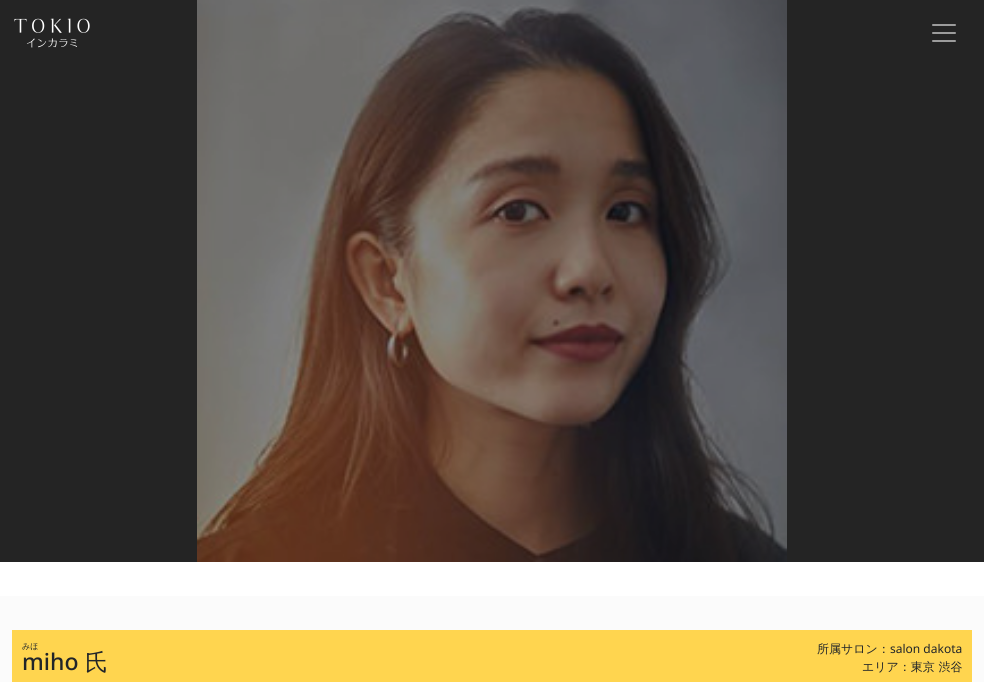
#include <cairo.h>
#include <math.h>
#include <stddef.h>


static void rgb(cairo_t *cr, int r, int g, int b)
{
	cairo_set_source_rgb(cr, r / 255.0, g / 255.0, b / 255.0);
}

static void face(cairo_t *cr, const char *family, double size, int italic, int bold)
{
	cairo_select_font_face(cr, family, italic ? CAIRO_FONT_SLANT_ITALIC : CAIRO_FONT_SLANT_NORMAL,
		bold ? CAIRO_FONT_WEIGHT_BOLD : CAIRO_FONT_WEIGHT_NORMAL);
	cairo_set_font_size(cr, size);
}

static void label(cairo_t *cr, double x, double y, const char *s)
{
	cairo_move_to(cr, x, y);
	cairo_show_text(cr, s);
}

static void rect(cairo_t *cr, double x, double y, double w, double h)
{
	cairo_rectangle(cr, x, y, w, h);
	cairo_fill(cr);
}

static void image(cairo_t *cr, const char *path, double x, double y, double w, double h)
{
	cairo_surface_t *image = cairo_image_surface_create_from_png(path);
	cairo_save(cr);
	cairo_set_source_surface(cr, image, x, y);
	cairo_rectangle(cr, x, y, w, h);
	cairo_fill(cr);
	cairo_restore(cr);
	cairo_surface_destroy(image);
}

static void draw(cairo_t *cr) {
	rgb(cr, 255, 255, 255);
	cairo_paint(cr);
	rgb(cr, 36, 36, 36);
	rect(cr, 0, 0, 984, 562);
	image(cr, "image0.png", 197, 0, 590, 562);
	image(cr, "image1.png", 14, 18, 76, 30);
	image(cr, "image2.png", 932, 24, 24, 18);
	rgb(cr, 251, 251, 251);
	rect(cr, 0, 596, 984, 86);
	rgb(cr, 255, 213, 79);
	rect(cr, 12, 630, 960, 52);
	face(cr, "WenQuanYi Zen Hei Medium", 8, 0, 0);
	rgb(cr, 33, 37, 41);
	label(cr, 22, 649, "みほ");
	face(cr, "Noto Sans Medium", 23, 0, 0);
	label(cr, 22, 670, "miho");
	face(cr, "WenQuanYi Zen Hei Medium", 23, 0, 0);
	label(cr, 85, 670, "氏");
	face(cr, "WenQuanYi Zen Hei Medium", 12, 0, 0);
	label(cr, 817, 653, "所属サロン：");
	face(cr, "Noto Sans", 12, 0, 0);
	label(cr, 890, 653, "salon dakota");
	face(cr, "WenQuanYi Zen Hei Medium", 12, 0, 0);
	label(cr, 862, 671, "エリア：東京 渋谷");
}

int main(void) {
	cairo_surface_t *surface = cairo_image_surface_create(CAIRO_FORMAT_RGB24, 984, 682);
	cairo_t *cr = cairo_create(surface);
	cairo_font_options_t *options = cairo_font_options_create();
	cairo_font_options_set_hint_metrics(options, CAIRO_HINT_METRICS_OFF);
	cairo_font_options_set_hint_style(options, CAIRO_HINT_STYLE_NONE);
	cairo_set_font_options(cr, options);
	cairo_set_miter_limit(cr, 4);
	draw(cr);
	cairo_surface_write_to_png(surface, "render.png");
	cairo_font_options_destroy(options);
	cairo_destroy(cr);
	cairo_surface_destroy(surface);
	return 0;
}
